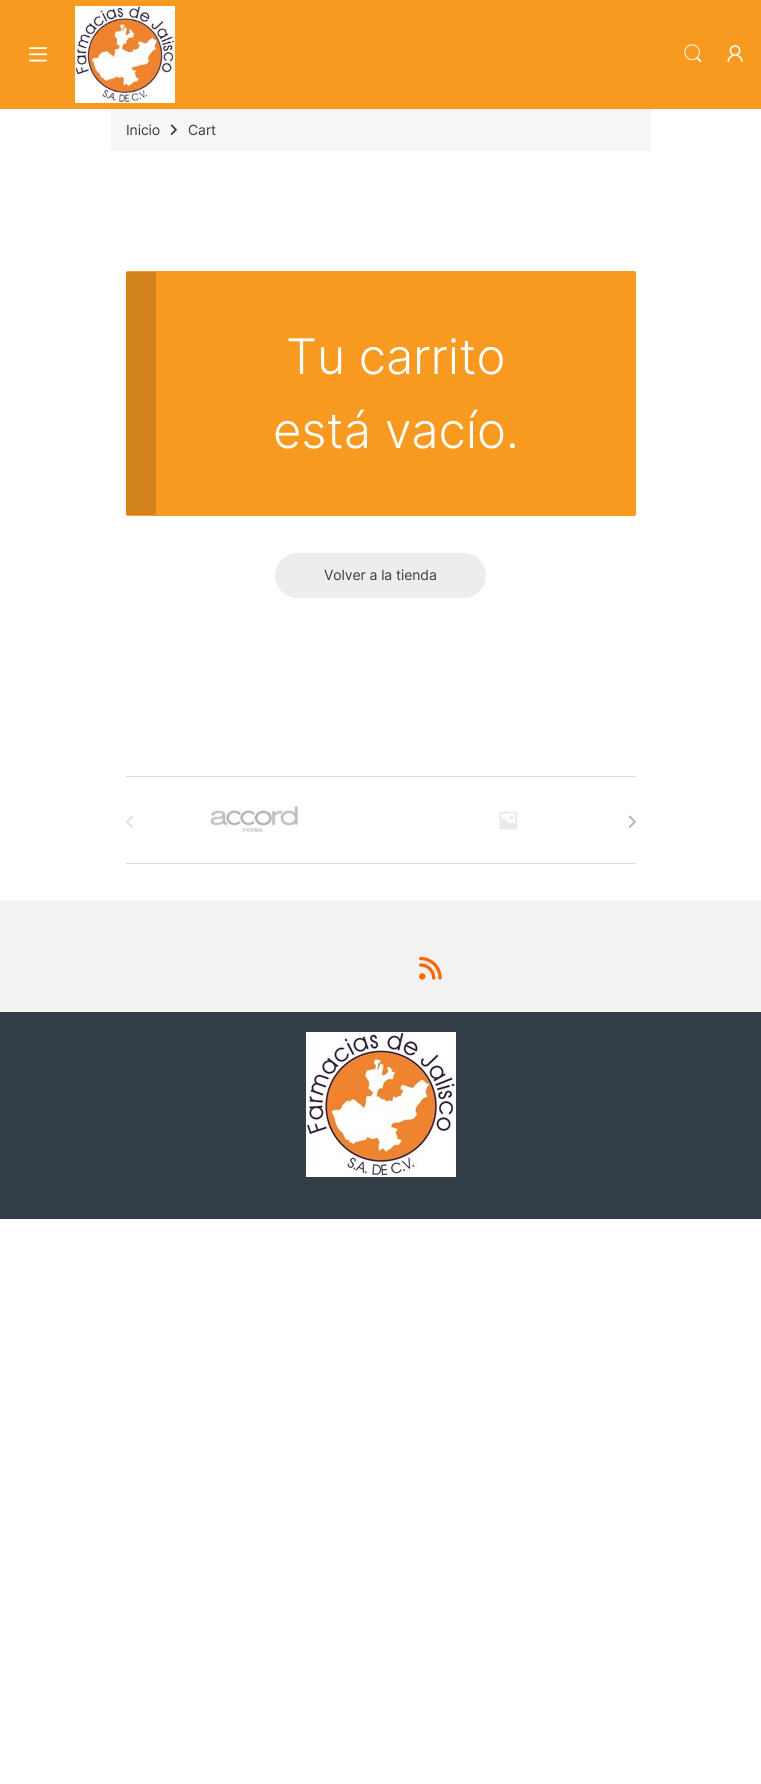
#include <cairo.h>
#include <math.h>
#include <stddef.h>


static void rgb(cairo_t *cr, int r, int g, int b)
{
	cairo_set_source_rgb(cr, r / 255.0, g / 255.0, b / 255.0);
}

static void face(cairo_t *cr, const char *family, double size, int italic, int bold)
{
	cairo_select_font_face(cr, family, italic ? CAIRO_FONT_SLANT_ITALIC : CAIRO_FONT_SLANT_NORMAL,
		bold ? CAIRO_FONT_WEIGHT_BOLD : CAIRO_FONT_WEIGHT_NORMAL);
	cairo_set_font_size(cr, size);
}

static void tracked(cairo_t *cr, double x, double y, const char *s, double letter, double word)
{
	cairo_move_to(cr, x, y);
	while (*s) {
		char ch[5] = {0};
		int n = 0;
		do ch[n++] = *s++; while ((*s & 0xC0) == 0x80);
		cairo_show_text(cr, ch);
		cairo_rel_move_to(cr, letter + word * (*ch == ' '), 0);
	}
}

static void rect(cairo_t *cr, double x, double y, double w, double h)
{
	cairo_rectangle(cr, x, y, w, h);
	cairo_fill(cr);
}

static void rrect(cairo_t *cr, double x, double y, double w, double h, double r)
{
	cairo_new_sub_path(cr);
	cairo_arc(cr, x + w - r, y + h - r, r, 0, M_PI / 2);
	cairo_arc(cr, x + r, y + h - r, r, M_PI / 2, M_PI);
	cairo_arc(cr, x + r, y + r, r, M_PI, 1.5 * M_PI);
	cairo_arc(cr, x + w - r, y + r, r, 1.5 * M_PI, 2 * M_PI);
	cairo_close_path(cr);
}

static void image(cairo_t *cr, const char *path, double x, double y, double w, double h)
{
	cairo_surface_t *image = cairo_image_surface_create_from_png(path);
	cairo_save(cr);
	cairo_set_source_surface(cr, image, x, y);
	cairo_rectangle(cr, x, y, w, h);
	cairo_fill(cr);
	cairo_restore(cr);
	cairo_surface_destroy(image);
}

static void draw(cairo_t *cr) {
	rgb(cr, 255, 255, 255);
	cairo_paint(cr);
	rgb(cr, 248, 154, 32);
	rect(cr, 0, 0, 761, 109);
	image(cr, "image0.png", 29, 47, 18, 15);
	image(cr, "image1.png", 75, 6, 100, 97);
	image(cr, "image2.png", 684, 44, 18, 19);
	image(cr, "image3.png", 727, 45, 16, 18);
	rgb(cr, 247, 246, 246);
	rect(cr, 111, 109, 540, 42);
	face(cr, "Inter", 14, 0, 0);
	rgb(cr, 51, 62, 72);
	tracked(cr, 126, 135, "Inicio", -0.1, 0);
	image(cr, "image4.png", 170, 124, 7, 11);
	tracked(cr, 188, 135, "Cart", -0.1, 0);
	rgb(cr, 248, 154, 32);
	rrect(cr, 126, 271, 510, 245, 2);
	cairo_fill(cr);
	cairo_set_source_rgba(cr, 0, 0, 0, 0.15);
	rect(cr, 126, 272, 30, 243);
	face(cr, "Inter Light", 49, 0, 0);
	rgb(cr, 255, 255, 255);
	tracked(cr, 286, 374, "Tu carrito", -0.1, 0);
	tracked(cr, 273, 448, "está vacío.", -0.1, 0);
	rgb(cr, 239, 236, 236);
	rrect(cr, 275.5, 553.5, 210, 44, 22);
	cairo_fill_preserve(cr);
	cairo_set_line_width(cr, 1);
	cairo_stroke(cr);
	face(cr, "Inter", 14, 0, 0);
	rgb(cr, 51, 62, 72);
	tracked(cr, 324, 580, "Volver a la tienda", -0.1, 0);
	rgb(cr, 221, 221, 221);
	rect(cr, 126, 776, 510, 1);
	rect(cr, 126, 863, 510, 1);
	image(cr, "image5.png", 209, 806, 90, 27);
	image(cr, "image6.png", 499, 811, 19, 19);
	image(cr, "image7.png", 126, 815, 7, 13);
	image(cr, "image8.png", 628, 815, 8, 13);
	rgb(cr, 242, 242, 242);
	rect(cr, 0, 901, 761, 111);
	image(cr, "image9.png", 419, 956, 23, 24);
	rgb(cr, 51, 62, 72);
	rect(cr, 0, 1012, 761, 207);
	image(cr, "image10.png", 306, 1032, 150, 145);
}

int main(void) {
	cairo_surface_t *surface = cairo_image_surface_create(CAIRO_FORMAT_RGB24, 761, 1784);
	cairo_t *cr = cairo_create(surface);
	cairo_font_options_t *options = cairo_font_options_create();
	cairo_font_options_set_hint_metrics(options, CAIRO_HINT_METRICS_OFF);
	cairo_font_options_set_hint_style(options, CAIRO_HINT_STYLE_NONE);
	cairo_set_font_options(cr, options);
	cairo_set_miter_limit(cr, 4);
	draw(cr);
	cairo_surface_write_to_png(surface, "render.png");
	cairo_font_options_destroy(options);
	cairo_destroy(cr);
	cairo_surface_destroy(surface);
	return 0;
}
